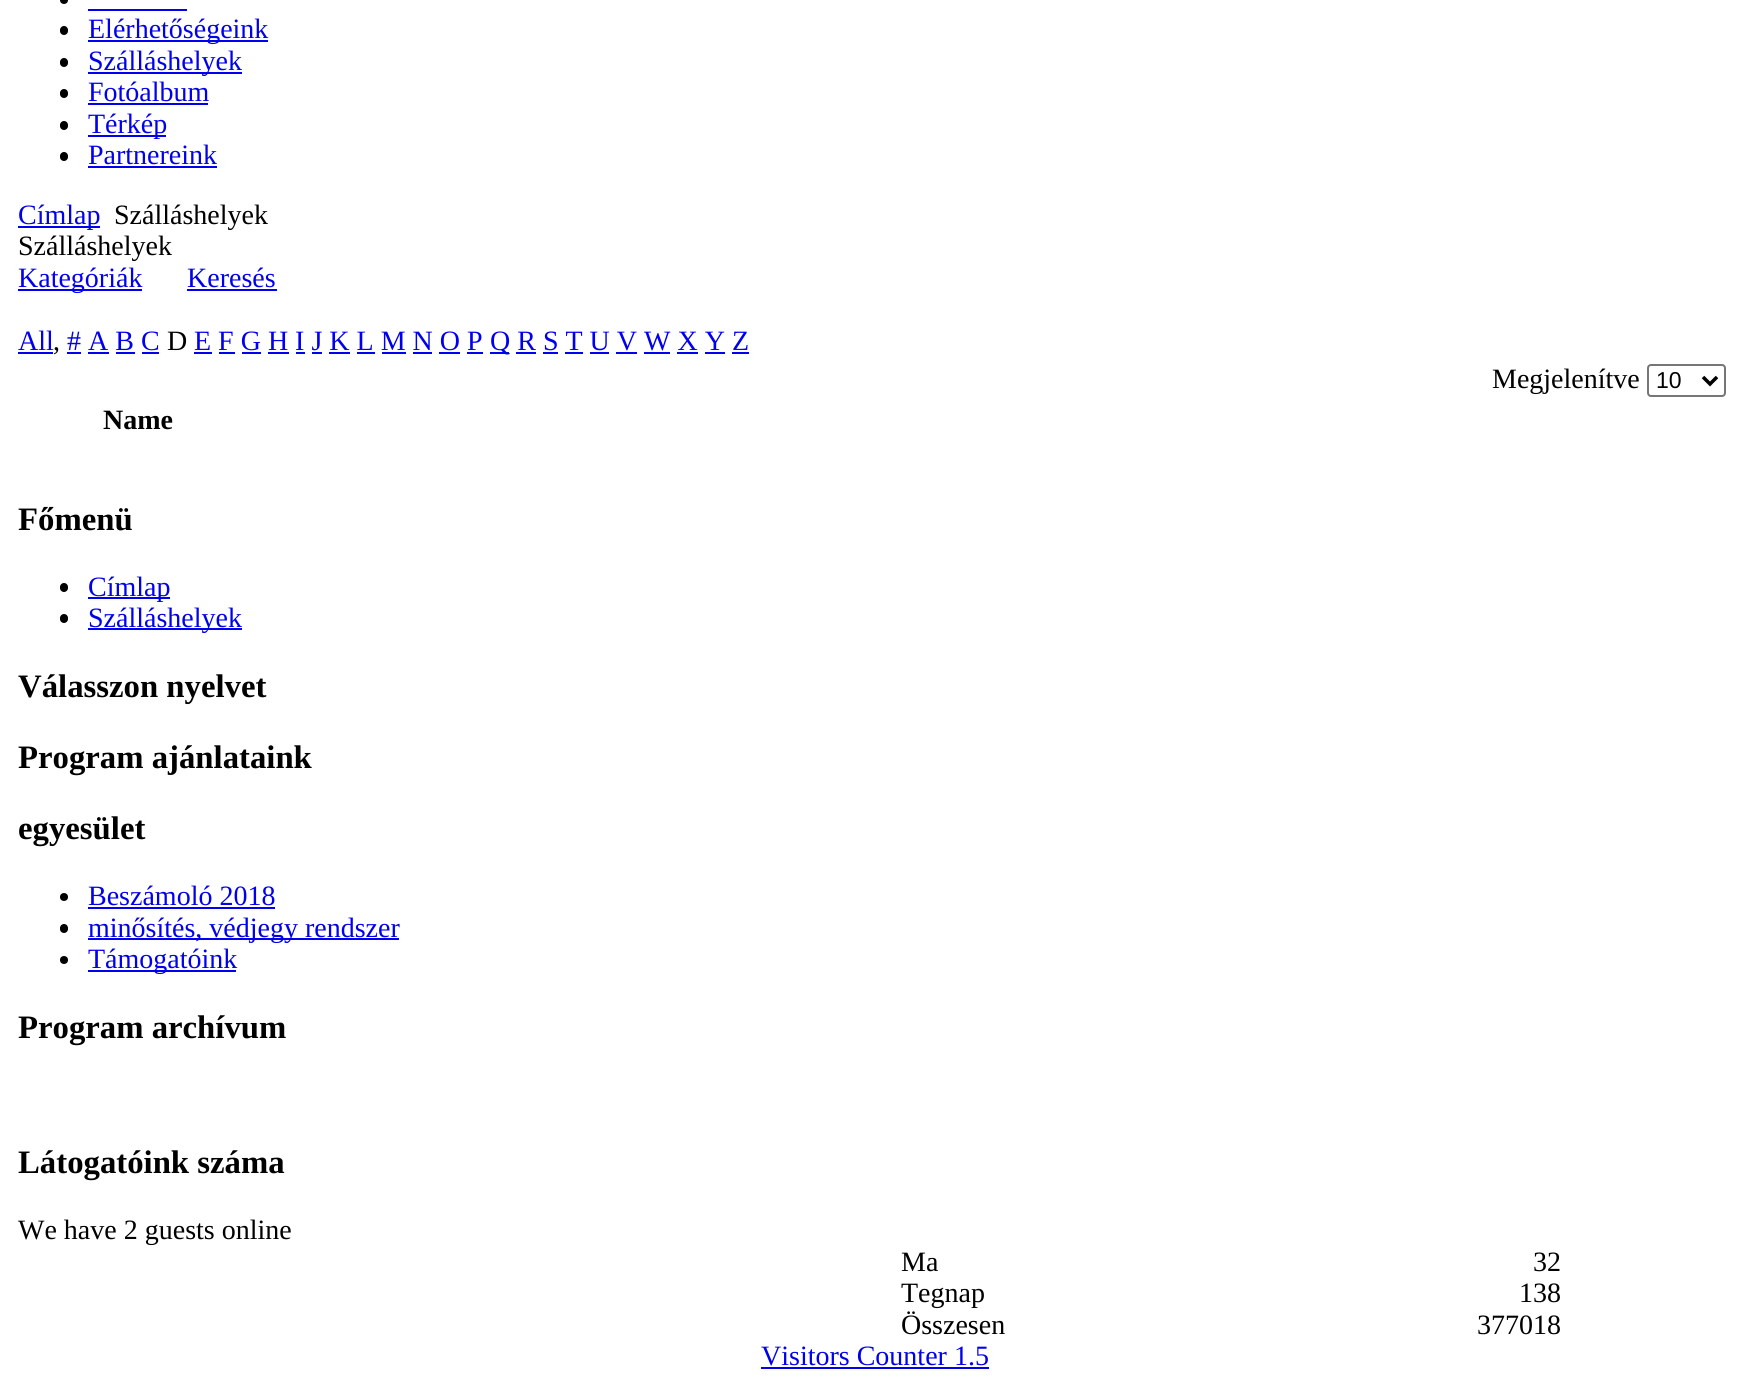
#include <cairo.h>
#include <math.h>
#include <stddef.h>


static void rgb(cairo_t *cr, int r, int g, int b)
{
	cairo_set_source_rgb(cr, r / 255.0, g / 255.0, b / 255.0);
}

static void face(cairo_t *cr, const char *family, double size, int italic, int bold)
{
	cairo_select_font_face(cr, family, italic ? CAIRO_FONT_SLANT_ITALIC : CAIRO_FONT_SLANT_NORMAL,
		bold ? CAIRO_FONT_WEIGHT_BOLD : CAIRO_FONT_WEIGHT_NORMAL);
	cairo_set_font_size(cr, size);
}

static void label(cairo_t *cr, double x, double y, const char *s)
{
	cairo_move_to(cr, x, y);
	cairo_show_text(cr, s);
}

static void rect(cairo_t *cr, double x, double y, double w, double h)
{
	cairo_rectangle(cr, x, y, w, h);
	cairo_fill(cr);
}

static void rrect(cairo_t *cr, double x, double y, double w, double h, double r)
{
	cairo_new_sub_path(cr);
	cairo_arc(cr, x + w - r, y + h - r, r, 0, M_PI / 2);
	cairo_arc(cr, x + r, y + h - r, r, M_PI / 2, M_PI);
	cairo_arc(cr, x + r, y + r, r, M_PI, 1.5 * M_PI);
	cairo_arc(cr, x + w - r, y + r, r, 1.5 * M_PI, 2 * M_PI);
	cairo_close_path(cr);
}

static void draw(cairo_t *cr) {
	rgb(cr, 255, 255, 255);
	cairo_paint(cr);
	rgb(cr, 0, 0, 0);
	cairo_arc(cr, 64, 0, 4, 0, 2 * M_PI);
	cairo_fill(cr);
	rgb(cr, 0, 0, 238);
	rect(cr, 88, 9, 99, 2);
	rgb(cr, 0, 0, 0);
	rrect(cr, 60, 26, 8, 9, 4);
	cairo_fill(cr);
	rgb(cr, 0, 0, 238);
	rect(cr, 88, 40, 180, 2);
	face(cr, "Liberation Serif", 28, 0, 0);
	label(cr, 88, 38, "Elérhetőségeink");
	rgb(cr, 0, 0, 0);
	rrect(cr, 60, 58, 8, 9, 4);
	cairo_fill(cr);
	rgb(cr, 0, 0, 238);
	rect(cr, 88, 72, 154, 2);
	label(cr, 88, 70, "Szálláshelyek");
	rgb(cr, 0, 0, 0);
	rrect(cr, 60, 89, 8, 9, 4);
	cairo_fill(cr);
	rgb(cr, 0, 0, 238);
	label(cr, 88, 101, "Fotóalbum");
	rect(cr, 88, 103, 120, 2);
	rgb(cr, 0, 0, 0);
	rrect(cr, 60, 121, 8, 9, 4);
	cairo_fill(cr);
	rgb(cr, 0, 0, 238);
	rect(cr, 88, 135, 78, 2);
	label(cr, 88, 133, "Térkép");
	rgb(cr, 0, 0, 0);
	rrect(cr, 60, 152, 8, 9, 4);
	cairo_fill(cr);
	rgb(cr, 0, 0, 238);
	label(cr, 88, 164, "Partnereink");
	rect(cr, 88, 166, 129, 2);
	rect(cr, 18, 226, 82, 2);
	label(cr, 18, 224, "Címlap");
	rgb(cr, 0, 0, 0);
	label(cr, 114, 224, "Szálláshelyek");
	label(cr, 18, 255, "Szálláshelyek");
	rgb(cr, 0, 0, 238);
	rect(cr, 18, 289, 124, 2);
	label(cr, 18, 287, "Kategóriák");
	label(cr, 187, 287, "Keresés");
	rect(cr, 187, 289, 90, 2);
	label(cr, 18, 350, "All");
	rect(cr, 18, 352, 35, 2);
	rgb(cr, 0, 0, 0);
	label(cr, 53, 350, ",");
	rgb(cr, 0, 0, 238);
	label(cr, 67, 350, "# A B C");
	rect(cr, 67, 352, 14, 2);
	rgb(cr, 0, 0, 0);
	label(cr, 167, 350, "D");
	rgb(cr, 0, 0, 238);
	label(cr, 194, 350, "E F G H I J K L M N O P");
	rect(cr, 194, 352, 18, 2);
	rect(cr, 490, 352, 19, 2);
	label(cr, 490, 350, "Q R S T U V W X Y Z");
	rect(cr, 88, 352, 21, 2);
	rect(cr, 116, 352, 19, 2);
	rect(cr, 142, 352, 17, 2);
	rect(cr, 219, 352, 16, 2);
	rect(cr, 242, 352, 19, 2);
	rect(cr, 268, 352, 21, 2);
	rect(cr, 296, 352, 9, 2);
	rect(cr, 312, 352, 10, 2);
	rect(cr, 329, 352, 21, 2);
	rect(cr, 357, 352, 18, 2);
	rect(cr, 382, 352, 24, 2);
	rect(cr, 413, 352, 19, 2);
	rect(cr, 439, 352, 21, 2);
	rect(cr, 467, 352, 16, 2);
	rect(cr, 516, 352, 20, 2);
	rect(cr, 543, 352, 15, 2);
	rect(cr, 565, 352, 18, 2);
	rect(cr, 590, 352, 19, 2);
	rect(cr, 616, 352, 21, 2);
	rect(cr, 644, 352, 26, 2);
	rect(cr, 677, 352, 21, 2);
	rect(cr, 705, 352, 20, 2);
	rect(cr, 732, 352, 17, 2);
	rgb(cr, 0, 0, 0);
	label(cr, 1492, 388, "Megjelenítve");
	rrect(cr, 1648, 365, 77, 31, 3);
	rgb(cr, 118, 118, 118);
	cairo_stroke(cr);
	cairo_new_path(cr);
	cairo_move_to(cr, 1703, 377);
	cairo_line_to(cr, 1710, 384);
	cairo_line_to(cr, 1717, 377);
	rgb(cr, 0, 0, 0);
	cairo_set_line_width(cr, 3.5);
	cairo_stroke(cr);
	face(cr, "Liberation Sans", 23, 0, 0);
	label(cr, 1656, 388, "10");
	face(cr, "Liberation Serif", 28, 0, 1);
	label(cr, 103, 429, "Name");
	face(cr, "Liberation Serif", 32.75, 0, 1);
	label(cr, 18, 530, "Főmenü");
	rrect(cr, 60, 583, 8, 9, 4);
	cairo_fill(cr);
	rgb(cr, 0, 0, 238);
	rect(cr, 88, 597, 82, 2);
	face(cr, "Liberation Serif", 28, 0, 0);
	label(cr, 88, 596, "Címlap");
	rgb(cr, 0, 0, 0);
	rrect(cr, 60, 614, 8, 9, 4);
	cairo_fill(cr);
	rgb(cr, 0, 0, 238);
	rect(cr, 88, 628, 154, 2);
	label(cr, 88, 627, "Szálláshelyek");
	face(cr, "Liberation Serif", 32.75, 0, 1);
	rgb(cr, 0, 0, 0);
	label(cr, 18, 697, "Válasszon nyelvet");
	label(cr, 18, 768, "Program ajánlataink");
	label(cr, 18, 839, "egyesület");
	cairo_new_path(cr);
	cairo_arc(cr, 64, 897, 4, 0, 2 * M_PI);
	cairo_fill(cr);
	face(cr, "Liberation Serif", 28, 0, 0);
	rgb(cr, 0, 0, 238);
	label(cr, 88, 905, "Beszámoló 2018");
	rect(cr, 88, 907, 187, 2);
	rgb(cr, 0, 0, 0);
	rrect(cr, 60, 924, 8, 9, 4);
	cairo_fill(cr);
	rgb(cr, 0, 0, 238);
	rect(cr, 88, 938, 311, 2);
	label(cr, 88, 937, "minősítés, védjegy rendszer");
	rgb(cr, 0, 0, 0);
	cairo_new_path(cr);
	cairo_arc(cr, 64, 960, 4, 0, 2 * M_PI);
	cairo_fill(cr);
	rgb(cr, 0, 0, 238);
	rect(cr, 88, 970, 148, 2);
	label(cr, 88, 968, "Támogatóink");
	face(cr, "Liberation Serif", 32.75, 0, 1);
	rgb(cr, 0, 0, 0);
	label(cr, 18, 1038, "Program archívum");
	label(cr, 18, 1173, "Látogatóink száma");
	face(cr, "Liberation Serif", 28, 0, 0);
	label(cr, 18, 1239, "We have 2 guests online");
	label(cr, 901, 1271, "Ma");
	label(cr, 1533, 1271, "32");
	label(cr, 901, 1302, "Tegnap");
	label(cr, 1519, 1302, "138");
	label(cr, 901, 1334, "Összesen");
	label(cr, 1477, 1334, "377018");
	rgb(cr, 0, 0, 238);
	label(cr, 761, 1365, "Visitors Counter 1.5");
	rect(cr, 761, 1367, 228, 2);
}

int main(void) {
	cairo_surface_t *surface = cairo_image_surface_create(CAIRO_FORMAT_RGB24, 1750, 1384);
	cairo_t *cr = cairo_create(surface);
	cairo_font_options_t *options = cairo_font_options_create();
	cairo_font_options_set_hint_metrics(options, CAIRO_HINT_METRICS_OFF);
	cairo_font_options_set_hint_style(options, CAIRO_HINT_STYLE_NONE);
	cairo_set_font_options(cr, options);
	cairo_set_miter_limit(cr, 4);
	draw(cr);
	cairo_surface_write_to_png(surface, "render.png");
	cairo_font_options_destroy(options);
	cairo_destroy(cr);
	cairo_surface_destroy(surface);
	return 0;
}
